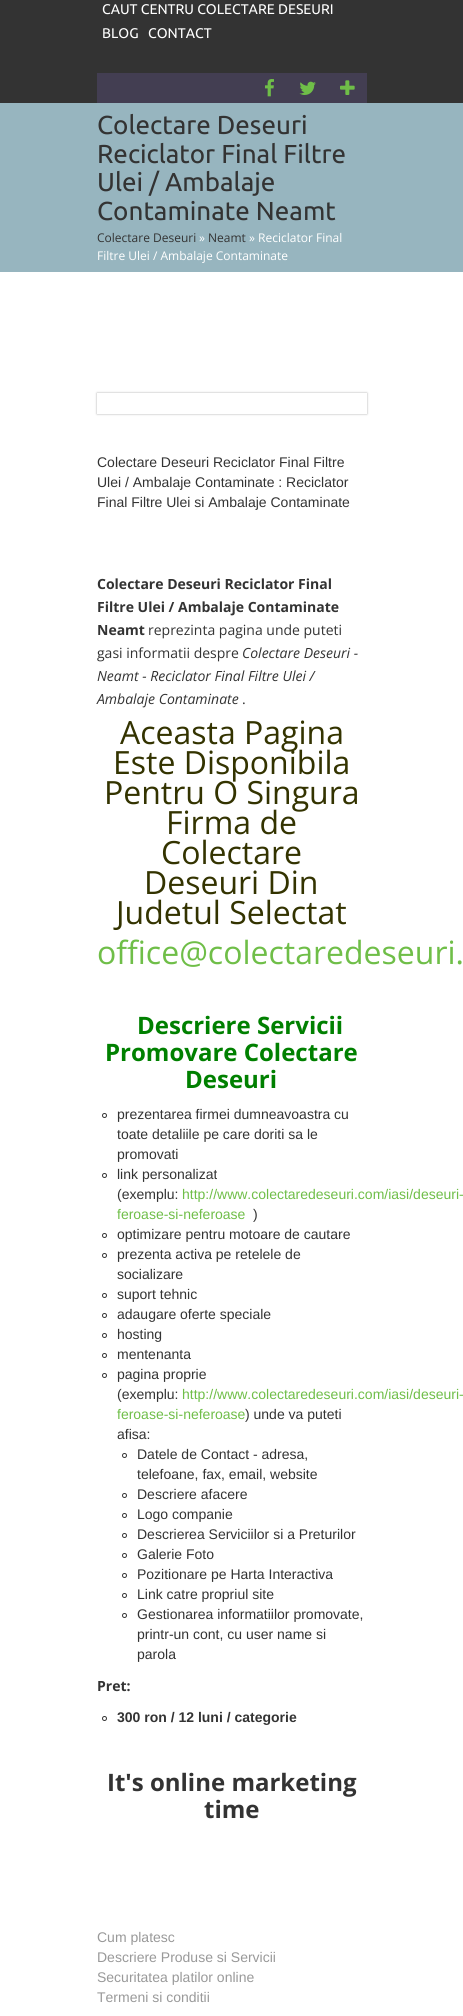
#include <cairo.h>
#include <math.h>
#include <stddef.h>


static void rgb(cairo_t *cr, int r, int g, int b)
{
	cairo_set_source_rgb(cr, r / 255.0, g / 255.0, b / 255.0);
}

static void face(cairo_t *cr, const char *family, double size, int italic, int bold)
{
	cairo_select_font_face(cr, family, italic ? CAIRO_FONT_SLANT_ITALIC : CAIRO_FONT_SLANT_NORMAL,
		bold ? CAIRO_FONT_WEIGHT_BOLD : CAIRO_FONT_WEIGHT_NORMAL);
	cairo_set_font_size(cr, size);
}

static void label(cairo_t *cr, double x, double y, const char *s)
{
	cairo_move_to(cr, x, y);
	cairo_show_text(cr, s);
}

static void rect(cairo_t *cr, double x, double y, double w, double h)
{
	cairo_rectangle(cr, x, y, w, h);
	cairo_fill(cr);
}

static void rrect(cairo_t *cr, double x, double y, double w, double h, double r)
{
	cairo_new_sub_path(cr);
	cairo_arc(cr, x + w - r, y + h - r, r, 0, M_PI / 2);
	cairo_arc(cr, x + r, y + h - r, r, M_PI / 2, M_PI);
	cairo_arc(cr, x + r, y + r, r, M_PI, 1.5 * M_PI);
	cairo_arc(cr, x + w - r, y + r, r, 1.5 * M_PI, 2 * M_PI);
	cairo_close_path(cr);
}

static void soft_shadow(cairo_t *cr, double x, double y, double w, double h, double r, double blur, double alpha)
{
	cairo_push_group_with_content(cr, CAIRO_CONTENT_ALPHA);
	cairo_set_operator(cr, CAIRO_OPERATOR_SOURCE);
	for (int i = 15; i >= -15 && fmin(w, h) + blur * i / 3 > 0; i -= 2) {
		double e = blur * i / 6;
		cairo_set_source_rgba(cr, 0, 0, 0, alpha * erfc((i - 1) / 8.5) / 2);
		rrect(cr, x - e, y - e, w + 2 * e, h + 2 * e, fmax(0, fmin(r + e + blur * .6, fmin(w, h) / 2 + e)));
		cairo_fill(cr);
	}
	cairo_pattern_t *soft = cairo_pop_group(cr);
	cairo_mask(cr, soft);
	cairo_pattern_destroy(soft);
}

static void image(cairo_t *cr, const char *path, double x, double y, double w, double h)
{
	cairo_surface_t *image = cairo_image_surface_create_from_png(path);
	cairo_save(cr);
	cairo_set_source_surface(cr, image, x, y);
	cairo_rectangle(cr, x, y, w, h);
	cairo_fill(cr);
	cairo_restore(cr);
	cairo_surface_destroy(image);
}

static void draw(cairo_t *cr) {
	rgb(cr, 255, 255, 255);
	cairo_paint(cr);
	rgb(cr, 51, 51, 51);
	rect(cr, 0, 0, 463, 103);
	face(cr, "Ubuntu", 14, 0, 0);
	rgb(cr, 255, 255, 255);
	label(cr, 102, 14, "CAUT CENTRU COLECTARE DESEURI");
	label(cr, 102, 38, "BLOG");
	label(cr, 148, 38, "CONTACT");
	rgb(cr, 67, 62, 82);
	rect(cr, 97, 73, 270, 30);
	image(cr, "image0.png", 265, 79, 9, 18);
	image(cr, "image1.png", 299, 81, 17, 14);
	image(cr, "image2.png", 340, 80, 15, 15);
	rgb(cr, 151, 181, 191);
	rect(cr, 0, 103, 463, 169);
	face(cr, "Ubuntu", 26, 0, 0);
	rgb(cr, 51, 51, 51);
	label(cr, 97, 134, "Colectare Deseuri");
	label(cr, 97, 163, "Reciclator Final Filtre");
	label(cr, 97, 191, "Ulei / Ambalaje");
	label(cr, 97, 220, "Contaminate Neamt");
	face(cr, "Open Sans", 12, 0, 0);
	label(cr, 97, 242, "Colectare Deseuri");
	rgb(cr, 255, 255, 255);
	label(cr, 199, 242, "»");
	rgb(cr, 51, 51, 51);
	label(cr, 208, 242, "Neamt");
	rgb(cr, 255, 255, 255);
	label(cr, 249, 242, "» Reciclator Final");
	label(cr, 97, 260, "Filtre Ulei / Ambalaje Contaminate");
	cairo_save(cr);
	cairo_set_fill_rule(cr, CAIRO_FILL_RULE_EVEN_ODD);
	cairo_new_path(cr);
	cairo_move_to(cr, 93, 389);
	cairo_line_to(cr, 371, 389);
	cairo_line_to(cr, 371, 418);
	cairo_line_to(cr, 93, 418);
	cairo_close_path(cr);
	cairo_move_to(cr, 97, 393);
	cairo_line_to(cr, 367, 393);
	cairo_line_to(cr, 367, 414);
	cairo_line_to(cr, 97, 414);
	cairo_close_path(cr);
	cairo_clip(cr);
	rgb(cr, 170, 170, 170);
	soft_shadow(cr, 97, 393, 270, 21, 0, 1, 1);
	cairo_restore(cr);
	face(cr, "Liberation Sans", 14, 0, 0);
	rgb(cr, 51, 51, 51);
	label(cr, 97, 467, "Colectare Deseuri Reciclator Final Filtre");
	label(cr, 97, 487, "Ulei / Ambalaje Contaminate : Reciclator");
	label(cr, 97, 507, "Final Filtre Ulei si Ambalaje Contaminate");
	face(cr, "Open Sans", 14, 0, 1);
	label(cr, 97, 589, "Colectare Deseuri Reciclator Final");
	label(cr, 97, 612, "Filtre Ulei / Ambalaje Contaminate");
	label(cr, 97, 635, "Neamt");
	face(cr, "Open Sans", 14, 0, 0);
	label(cr, 148, 635, "reprezinta pagina unde puteti");
	label(cr, 97, 658, "gasi informatii despre");
	face(cr, "Open Sans", 14, 1, 0);
	label(cr, 242, 658, "Colectare Deseuri -");
	label(cr, 97, 681, "Neamt - Reciclator Final Filtre Ulei /");
	label(cr, 97, 704, "Ambalaje Contaminate");
	face(cr, "Open Sans", 14, 0, 0);
	label(cr, 242, 704, ".");
	face(cr, "Open Sans", 32, 0, 0);
	rgb(cr, 51, 51, 0);
	label(cr, 120, 744, "Aceasta Pagina");
	label(cr, 113, 774, "Este Disponibila");
	label(cr, 104, 804, "Pentru O Singura");
	label(cr, 166, 834, "Firma de");
	label(cr, 161, 864, "Colectare");
	label(cr, 144, 894, "Deseuri Din");
	label(cr, 116, 924, "Judetul Selectat");
	rgb(cr, 111, 190, 72);
	label(cr, 97, 964, "office@colectaredeseuri.");
	face(cr, "Open Sans", 24, 0, 1);
	rgb(cr, 0, 128, 0);
	label(cr, 137, 1034, "Descriere Servicii");
	label(cr, 105, 1061, "Promovare Colectare");
	label(cr, 185, 1088, "Deseuri");
	cairo_new_path(cr);
	cairo_arc(cr, 104.5, 1115.5, 2, 0, 2 * M_PI);
	rgb(cr, 51, 51, 51);
	cairo_set_line_width(cr, 1);
	cairo_stroke(cr);
	face(cr, "Liberation Sans", 14, 0, 0);
	label(cr, 117, 1119, "prezentarea firmei dumneavoastra cu");
	label(cr, 117, 1139, "toate detaliile pe care doriti sa le");
	label(cr, 117, 1159, "promovati");
	cairo_new_path(cr);
	cairo_arc(cr, 104.5, 1175.5, 2, 0, 2 * M_PI);
	cairo_stroke(cr);
	label(cr, 117, 1179, "link personalizat");
	label(cr, 117, 1199, "(exemplu:");
	rgb(cr, 111, 190, 72);
	label(cr, 182, 1199, "http://www.colectaredeseuri.com/iasi/deseuri-");
	label(cr, 117, 1219, "feroase-si-neferoase");
	rgb(cr, 51, 51, 51);
	label(cr, 253, 1219, ")");
	cairo_new_path(cr);
	cairo_arc(cr, 104.5, 1235.5, 2, 0, 2 * M_PI);
	cairo_stroke(cr);
	label(cr, 117, 1239, "optimizare pentru motoare de cautare");
	cairo_new_path(cr);
	cairo_arc(cr, 104.5, 1255.5, 2, 0, 2 * M_PI);
	cairo_stroke(cr);
	label(cr, 117, 1259, "prezenta activa pe retelele de");
	label(cr, 117, 1279, "socializare");
	cairo_new_path(cr);
	cairo_arc(cr, 104.5, 1295.5, 2, 0, 2 * M_PI);
	cairo_stroke(cr);
	label(cr, 117, 1299, "suport tehnic");
	cairo_new_path(cr);
	cairo_arc(cr, 104.5, 1315.5, 2, 0, 2 * M_PI);
	cairo_stroke(cr);
	label(cr, 117, 1319, "adaugare oferte speciale");
	cairo_new_path(cr);
	cairo_arc(cr, 104.5, 1335.5, 2, 0, 2 * M_PI);
	cairo_stroke(cr);
	label(cr, 117, 1339, "hosting");
	cairo_new_path(cr);
	cairo_arc(cr, 104.5, 1355.5, 2, 0, 2 * M_PI);
	cairo_stroke(cr);
	label(cr, 117, 1359, "mentenanta");
	cairo_new_path(cr);
	cairo_arc(cr, 104.5, 1375.5, 2, 0, 2 * M_PI);
	cairo_stroke(cr);
	label(cr, 117, 1379, "pagina proprie");
	label(cr, 117, 1399, "(exemplu:");
	rgb(cr, 111, 190, 72);
	label(cr, 182, 1399, "http://www.colectaredeseuri.com/iasi/deseuri-");
	label(cr, 117, 1419, "feroase-si-neferoase");
	rgb(cr, 51, 51, 51);
	label(cr, 245, 1419, ") unde va puteti");
	label(cr, 117, 1439, "afisa:");
	cairo_new_path(cr);
	cairo_arc(cr, 124.5, 1455.5, 2, 0, 2 * M_PI);
	cairo_stroke(cr);
	label(cr, 137, 1459, "Datele de Contact - adresa,");
	label(cr, 137, 1479, "telefoane, fax, email, website");
	cairo_new_path(cr);
	cairo_arc(cr, 124.5, 1495.5, 2, 0, 2 * M_PI);
	cairo_stroke(cr);
	label(cr, 137, 1499, "Descriere afacere");
	cairo_new_path(cr);
	cairo_arc(cr, 124.5, 1515.5, 2, 0, 2 * M_PI);
	cairo_stroke(cr);
	label(cr, 137, 1519, "Logo companie");
	cairo_new_path(cr);
	cairo_arc(cr, 124.5, 1535.5, 2, 0, 2 * M_PI);
	cairo_stroke(cr);
	label(cr, 137, 1539, "Descrierea Serviciilor si a Preturilor");
	cairo_new_path(cr);
	cairo_arc(cr, 124.5, 1555.5, 2, 0, 2 * M_PI);
	cairo_stroke(cr);
	label(cr, 137, 1559, "Galerie Foto");
	cairo_new_path(cr);
	cairo_arc(cr, 124.5, 1575.5, 2, 0, 2 * M_PI);
	cairo_stroke(cr);
	label(cr, 137, 1579, "Pozitionare pe Harta Interactiva");
	cairo_new_path(cr);
	cairo_arc(cr, 124.5, 1595.5, 2, 0, 2 * M_PI);
	cairo_stroke(cr);
	label(cr, 137, 1599, "Link catre propriul site");
	cairo_new_path(cr);
	cairo_arc(cr, 124.5, 1615.5, 2, 0, 2 * M_PI);
	cairo_stroke(cr);
	label(cr, 137, 1619, "Gestionarea informatiilor promovate,");
	label(cr, 137, 1639, "printr-un cont, cu user name si");
	label(cr, 137, 1659, "parola");
	face(cr, "Open Sans", 14, 0, 1);
	label(cr, 97, 1691, "Pret:");
	cairo_new_path(cr);
	cairo_arc(cr, 104.5, 1718.5, 2, 0, 2 * M_PI);
	cairo_stroke(cr);
	face(cr, "Liberation Sans", 14, 0, 1);
	label(cr, 117, 1722, "300 ron / 12 luni / categorie");
	face(cr, "Open Sans", 24, 0, 1);
	label(cr, 107, 1791, "It's online marketing");
	label(cr, 204, 1818, "time");
	face(cr, "Liberation Sans", 14, 0, 0);
	rgb(cr, 153, 153, 153);
	label(cr, 97, 1942, "Cum platesc");
	label(cr, 97, 1962, "Descriere Produse si Servicii");
	label(cr, 97, 1982, "Securitatea platilor online");
	label(cr, 97, 2002, "Termeni si conditii");
}

int main(void) {
	cairo_surface_t *surface = cairo_image_surface_create(CAIRO_FORMAT_RGB24, 463, 2016);
	cairo_t *cr = cairo_create(surface);
	cairo_font_options_t *options = cairo_font_options_create();
	cairo_font_options_set_hint_metrics(options, CAIRO_HINT_METRICS_OFF);
	cairo_font_options_set_hint_style(options, CAIRO_HINT_STYLE_NONE);
	cairo_set_font_options(cr, options);
	cairo_set_miter_limit(cr, 4);
	draw(cr);
	cairo_surface_write_to_png(surface, "render.png");
	cairo_font_options_destroy(options);
	cairo_destroy(cr);
	cairo_surface_destroy(surface);
	return 0;
}
